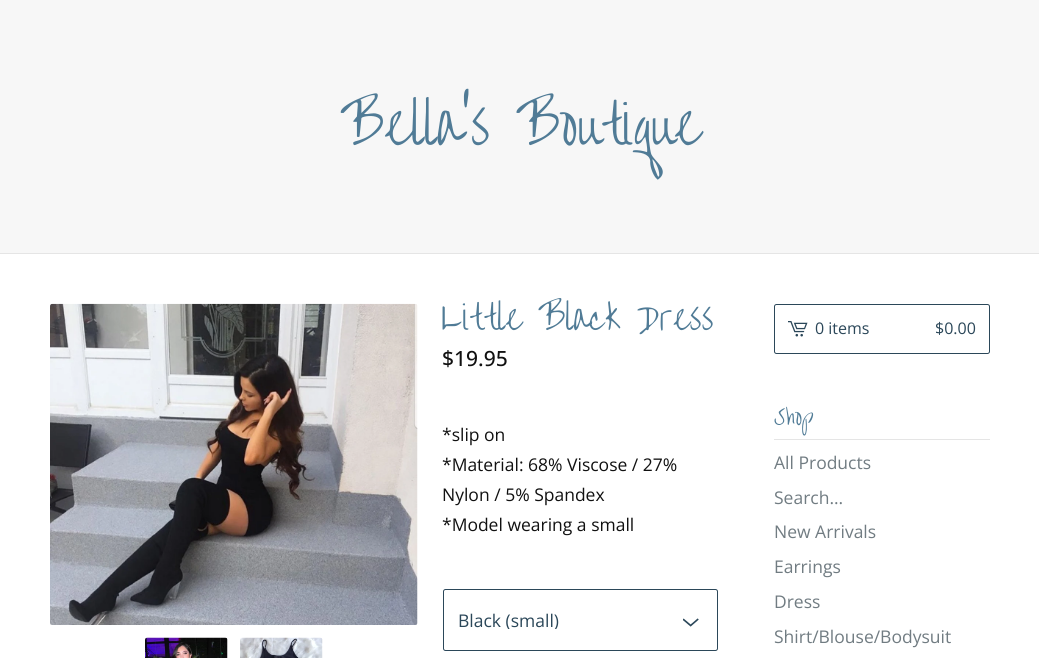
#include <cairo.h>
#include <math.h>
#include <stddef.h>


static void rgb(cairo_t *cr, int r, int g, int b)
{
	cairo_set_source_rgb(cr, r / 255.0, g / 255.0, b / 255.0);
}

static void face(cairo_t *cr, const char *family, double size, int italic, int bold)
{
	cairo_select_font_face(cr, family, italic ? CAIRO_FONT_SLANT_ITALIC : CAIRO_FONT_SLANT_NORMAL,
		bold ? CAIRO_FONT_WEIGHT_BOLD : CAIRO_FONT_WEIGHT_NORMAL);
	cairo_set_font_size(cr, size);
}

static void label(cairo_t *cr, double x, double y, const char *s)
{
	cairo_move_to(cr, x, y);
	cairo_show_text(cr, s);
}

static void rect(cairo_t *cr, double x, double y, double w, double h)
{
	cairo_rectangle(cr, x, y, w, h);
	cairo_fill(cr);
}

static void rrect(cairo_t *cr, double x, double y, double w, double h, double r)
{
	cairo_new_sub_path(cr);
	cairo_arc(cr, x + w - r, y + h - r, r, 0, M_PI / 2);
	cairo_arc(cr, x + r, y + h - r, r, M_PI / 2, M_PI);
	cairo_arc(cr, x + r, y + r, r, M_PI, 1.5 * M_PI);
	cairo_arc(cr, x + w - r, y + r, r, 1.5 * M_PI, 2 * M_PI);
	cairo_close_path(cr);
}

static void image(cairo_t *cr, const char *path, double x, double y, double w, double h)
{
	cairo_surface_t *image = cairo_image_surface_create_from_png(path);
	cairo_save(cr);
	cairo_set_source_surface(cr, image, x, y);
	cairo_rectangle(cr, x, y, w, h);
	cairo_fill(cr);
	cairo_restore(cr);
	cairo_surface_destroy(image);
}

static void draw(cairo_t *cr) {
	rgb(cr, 255, 255, 255);
	cairo_paint(cr);
	rgb(cr, 247, 247, 247);
	rect(cr, 0, 0, 1039, 253);
	rgb(cr, 229, 229, 229);
	rect(cr, 0, 253, 1039, 1);
	face(cr, "Over the Rainbow", 52.5, 0, 0);
	rgb(cr, 80, 123, 150);
	label(cr, 340, 145, "Bella's Boutique");
	image(cr, "image0.png", 50, 303, 368, 322);
	image(cr, "image1.png", 145, 637, 83, 21);
	image(cr, "image2.png", 240, 637, 83, 21);
	face(cr, "Over the Rainbow", 32.5, 0, 0);
	label(cr, 442, 330, "Little Black Dress");
	face(cr, "Open Sans Medium", 21, 0, 0);
	rgb(cr, 17, 17, 17);
	label(cr, 442, 366, "$19.95");
	face(cr, "Open Sans", 17.5, 0, 0);
	label(cr, 442, 441, "*slip on");
	label(cr, 442, 471, "*Material: 68% Viscose / 27%");
	label(cr, 442, 501, "Nylon / 5% Spandex");
	label(cr, 442, 531, "*Model wearing a small");
	rrect(cr, 443.5, 589.5, 274, 61, 2);
	rgb(cr, 43, 71, 89);
	cairo_set_line_width(cr, 1);
	cairo_stroke(cr);
	cairo_save(cr);
	cairo_rectangle(cr, 459, 611, 210, 18);
	cairo_clip(cr);
	label(cr, 458, 627, "Black (small)");
	cairo_restore(cr);
	image(cr, "image3.png", 683, 618, 16, 9);
	rrect(cr, 774.5, 304.5, 215, 49, 2);
	cairo_stroke(cr);
	image(cr, "image4.png", 788, 321, 20, 16);
	face(cr, "Open Sans", 16, 0, 0);
	label(cr, 815, 334, "0 items");
	label(cr, 935, 334, "$0.00");
	rgb(cr, 229, 229, 229);
	rect(cr, 774, 439, 216, 1);
	face(cr, "Over the Rainbow", 21, 0, 0);
	rgb(cr, 80, 123, 150);
	label(cr, 774, 425, "Shop");
	face(cr, "Open Sans", 17.5, 0, 0);
	rgb(cr, 113, 124, 130);
	label(cr, 774, 469, "All Products");
	label(cr, 774, 504, "Search...");
	label(cr, 774, 538, "New Arrivals");
	label(cr, 774, 573, "Earrings");
	label(cr, 774, 608, "Dress");
	label(cr, 774, 643, "Shirt/Blouse/Bodysuit");
}

int main(void) {
	cairo_surface_t *surface = cairo_image_surface_create(CAIRO_FORMAT_RGB24, 1039, 658);
	cairo_t *cr = cairo_create(surface);
	cairo_font_options_t *options = cairo_font_options_create();
	cairo_font_options_set_hint_metrics(options, CAIRO_HINT_METRICS_OFF);
	cairo_font_options_set_hint_style(options, CAIRO_HINT_STYLE_NONE);
	cairo_set_font_options(cr, options);
	cairo_set_miter_limit(cr, 4);
	draw(cr);
	cairo_surface_write_to_png(surface, "render.png");
	cairo_font_options_destroy(options);
	cairo_destroy(cr);
	cairo_surface_destroy(surface);
	return 0;
}
